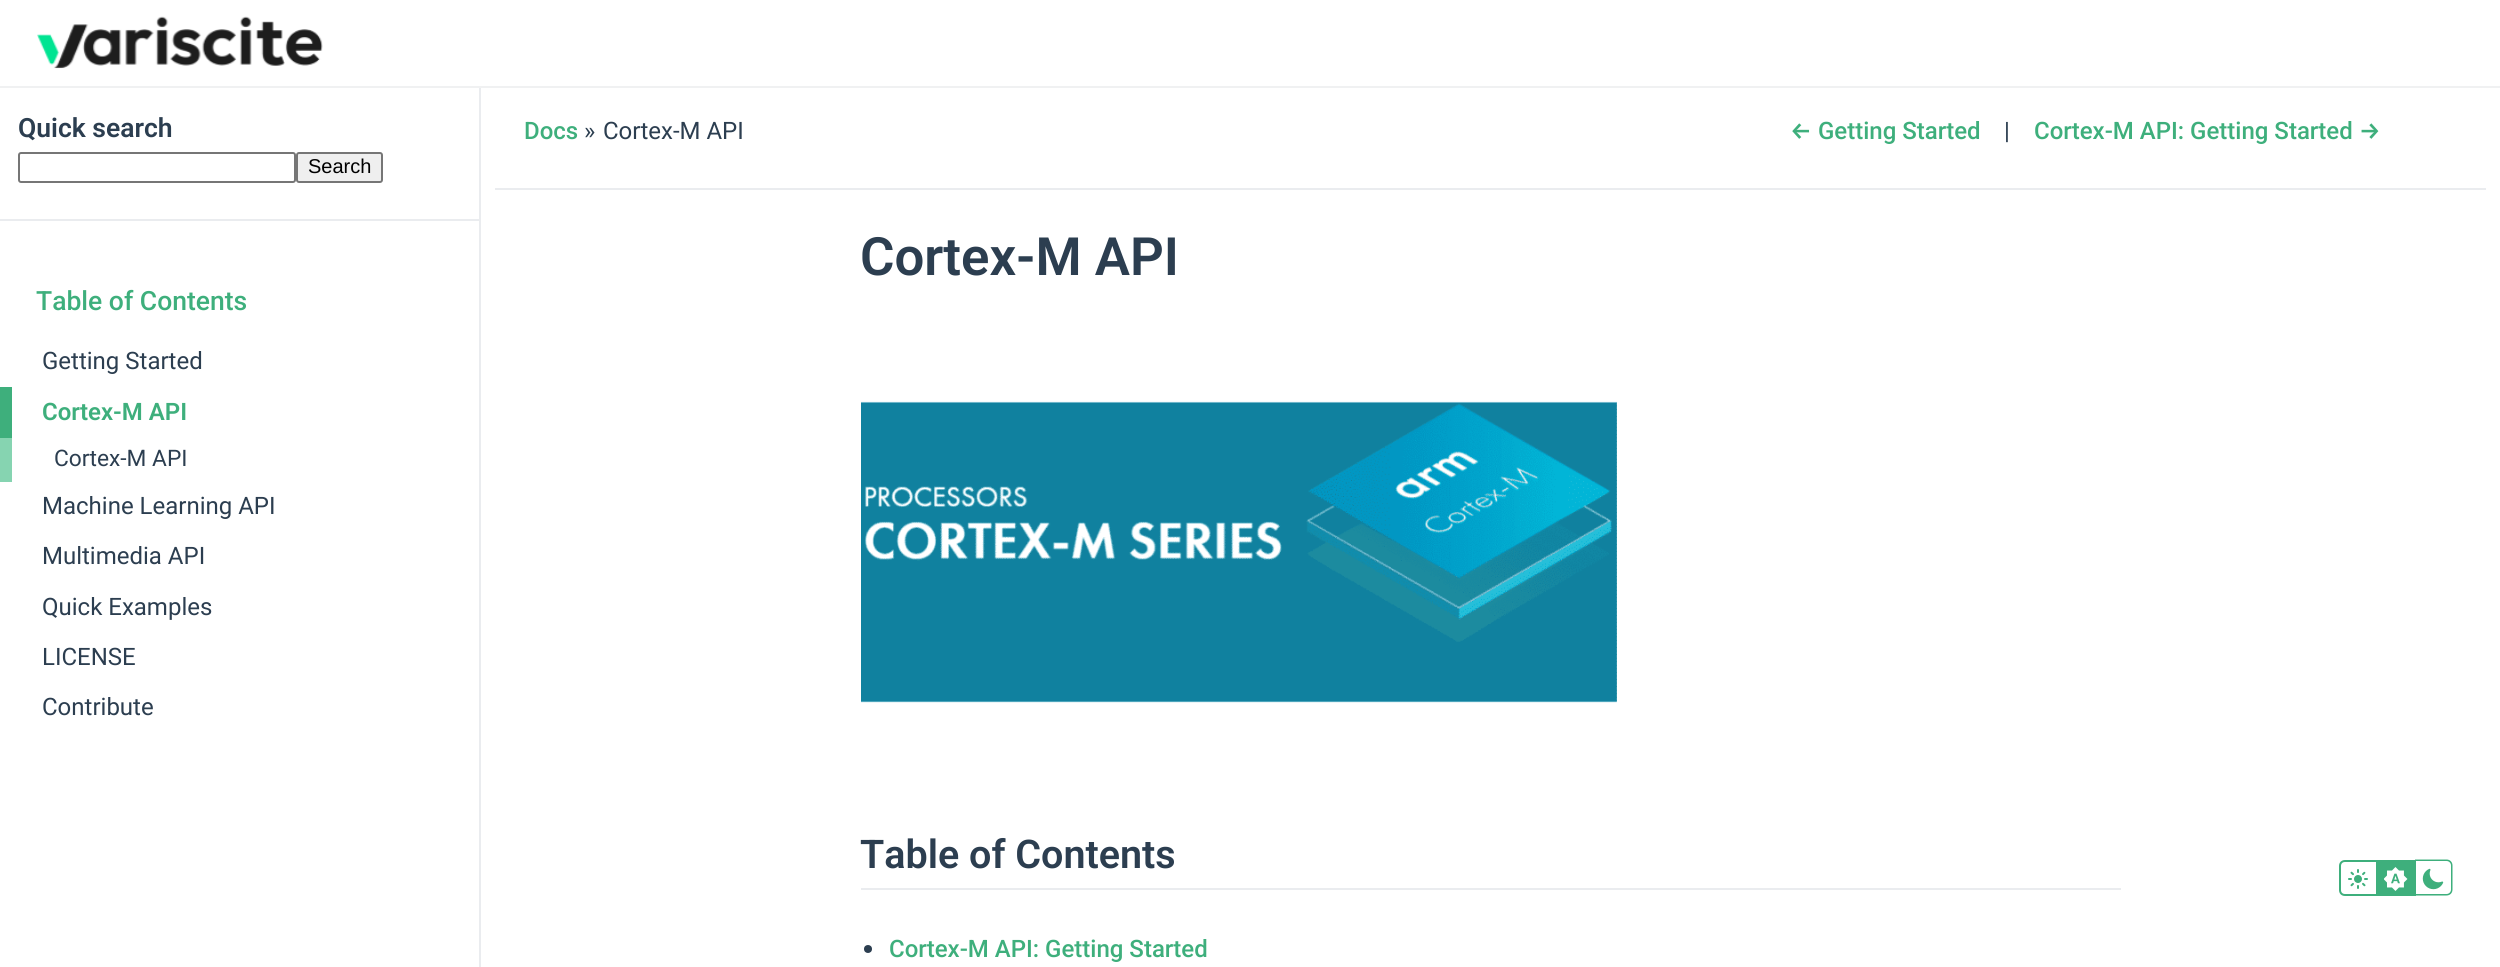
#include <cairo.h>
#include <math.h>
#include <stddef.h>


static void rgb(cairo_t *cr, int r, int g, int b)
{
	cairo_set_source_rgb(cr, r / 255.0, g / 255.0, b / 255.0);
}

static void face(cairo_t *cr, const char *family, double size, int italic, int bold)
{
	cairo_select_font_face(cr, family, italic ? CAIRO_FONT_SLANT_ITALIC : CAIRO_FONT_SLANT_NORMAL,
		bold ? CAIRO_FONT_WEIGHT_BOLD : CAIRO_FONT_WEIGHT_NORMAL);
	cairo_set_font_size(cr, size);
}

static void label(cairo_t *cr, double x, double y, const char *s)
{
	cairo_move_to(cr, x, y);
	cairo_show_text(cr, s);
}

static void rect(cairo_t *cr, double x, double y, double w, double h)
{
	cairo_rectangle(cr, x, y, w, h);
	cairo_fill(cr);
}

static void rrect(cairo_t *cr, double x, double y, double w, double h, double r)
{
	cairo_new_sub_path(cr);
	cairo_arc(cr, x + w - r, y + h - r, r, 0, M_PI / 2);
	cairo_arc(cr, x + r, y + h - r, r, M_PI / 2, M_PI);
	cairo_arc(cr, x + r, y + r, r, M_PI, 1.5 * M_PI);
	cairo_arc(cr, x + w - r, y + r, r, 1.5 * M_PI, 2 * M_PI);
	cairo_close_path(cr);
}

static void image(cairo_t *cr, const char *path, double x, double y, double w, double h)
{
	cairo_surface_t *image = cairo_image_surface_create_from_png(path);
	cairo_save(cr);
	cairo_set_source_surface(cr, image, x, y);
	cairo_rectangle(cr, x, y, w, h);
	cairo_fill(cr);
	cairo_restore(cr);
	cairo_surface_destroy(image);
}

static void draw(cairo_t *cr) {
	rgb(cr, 255, 255, 255);
	cairo_paint(cr);
	rgb(cr, 234, 236, 239);
	rect(cr, 479, 87, 2, 880);
	rgb(cr, 240, 241, 242);
	rect(cr, 0, 86, 2500, 2);
	image(cr, "image0.png", 37, 16, 286, 53);
	cairo_new_path(cr);
	cairo_move_to(cr, 2345, 861);
	cairo_line_to(cr, 2377, 861);
	cairo_line_to(cr, 2377, 895);
	cairo_line_to(cr, 2345, 895);
	cairo_curve_to(cr, 2342, 895, 2340, 893, 2340, 890);
	cairo_line_to(cr, 2340, 866);
	cairo_curve_to(cr, 2340, 863, 2342, 861, 2345, 861);
	cairo_close_path(cr);
	rgb(cr, 62, 175, 124);
	cairo_stroke(cr);
	image(cr, "image1.png", 2348, 869, 20, 20);
	rect(cr, 2378, 860, 38, 36);
	image(cr, "image2.png", 2384, 867, 24, 24);
	cairo_set_fill_rule(cr, CAIRO_FILL_RULE_EVEN_ODD);
	cairo_new_path(cr);
	cairo_move_to(cr, 2415, 859.5);
	cairo_line_to(cr, 2446.5, 859.5);
	cairo_curve_to(cr, 2450, 859.5, 2452.5, 862, 2452.5, 865.5);
	cairo_line_to(cr, 2452.5, 889.5);
	cairo_curve_to(cr, 2452.5, 893, 2450, 895.5, 2446.5, 895.5);
	cairo_line_to(cr, 2415, 895.5);
	cairo_close_path(cr);
	cairo_move_to(cr, 2415, 861);
	cairo_line_to(cr, 2446.5, 861);
	cairo_curve_to(cr, 2449, 861, 2451, 863, 2451, 865.5);
	cairo_line_to(cr, 2451, 889.5);
	cairo_curve_to(cr, 2451, 892, 2449, 894, 2446.5, 894);
	cairo_line_to(cr, 2415, 894);
	cairo_close_path(cr);
	cairo_fill(cr);
	image(cr, "image3.png", 2422, 868, 22, 22);
	rgb(cr, 234, 236, 239);
	rect(cr, 0, 219, 479, 2);
	face(cr, "Roboto SemiBold", 26.5, 0, 0);
	rgb(cr, 44, 62, 80);
	label(cr, 18, 137, "Quick search");
	rrect(cr, 19, 153, 276, 29, 2);
	rgb(cr, 118, 118, 118);
	cairo_stroke(cr);
	rgb(cr, 239, 239, 239);
	rrect(cr, 297, 153, 85, 29, 2);
	cairo_fill_preserve(cr);
	rgb(cr, 118, 118, 118);
	cairo_stroke(cr);
	face(cr, "Liberation Sans", 20, 0, 0);
	rgb(cr, 0, 0, 0);
	label(cr, 308, 173, "Search");
	face(cr, "Roboto Medium", 26.5, 0, 0);
	rgb(cr, 62, 175, 124);
	label(cr, 36, 310, "Table of Contents");
	face(cr, "Roboto", 24, 0, 0);
	rgb(cr, 44, 62, 80);
	label(cr, 42, 369, "Getting Started");
	rgb(cr, 62, 175, 124);
	rect(cr, 0, 387, 12, 51);
	face(cr, "Roboto SemiBold", 24, 0, 0);
	label(cr, 42, 420, "Cortex-M API");
	rgb(cr, 134, 212, 177);
	rect(cr, 0, 438, 12, 44);
	face(cr, "Roboto", 22.75, 0, 0);
	rgb(cr, 44, 62, 80);
	label(cr, 54, 466, "Cortex-M API");
	face(cr, "Roboto", 24, 0, 0);
	label(cr, 42, 514, "Machine Learning API");
	label(cr, 42, 564, "Multimedia API");
	label(cr, 42, 615, "Quick Examples");
	label(cr, 42, 665, "LICENSE");
	label(cr, 42, 715, "Contribute");
	face(cr, "Roboto Medium", 24, 0, 0);
	rgb(cr, 62, 175, 124);
	label(cr, 524, 139, "Docs");
	face(cr, "Roboto", 24, 0, 0);
	rgb(cr, 44, 62, 80);
	label(cr, 584, 139, "»");
	label(cr, 603, 139, "Cortex-M API");
	face(cr, "Fira Sans Medium", 24, 0, 0);
	rgb(cr, 62, 175, 124);
	label(cr, 1790, 139, "←");
	face(cr, "Roboto Medium", 24, 0, 0);
	label(cr, 1818, 139, "Getting Started");
	face(cr, "Roboto", 24, 0, 0);
	rgb(cr, 44, 62, 80);
	label(cr, 2004, 139, "|");
	face(cr, "Roboto Medium", 24, 0, 0);
	rgb(cr, 62, 175, 124);
	label(cr, 2034, 139, "Cortex-M API: Getting Started");
	face(cr, "Fira Sans Medium", 24, 0, 0);
	label(cr, 2359, 139, "→");
	rgb(cr, 234, 236, 239);
	rect(cr, 495, 188, 1991, 2);
	face(cr, "Roboto SemiBold", 52.75, 0, 0);
	rgb(cr, 44, 62, 80);
	label(cr, 860, 275, "Cortex-M API");
	image(cr, "image4.png", 861, 401, 756, 302);
	rgb(cr, 234, 236, 239);
	rect(cr, 861, 888, 1260, 2);
	face(cr, "Roboto SemiBold", 39.5, 0, 0);
	rgb(cr, 44, 62, 80);
	label(cr, 860, 868, "Table of Contents");
	cairo_new_path(cr);
	cairo_arc(cr, 868, 949, 4, 0, 2 * M_PI);
	cairo_fill(cr);
	face(cr, "Roboto Medium", 24, 0, 0);
	rgb(cr, 62, 175, 124);
	label(cr, 889, 957, "Cortex-M API: Getting Started");
}

int main(void) {
	cairo_surface_t *surface = cairo_image_surface_create(CAIRO_FORMAT_RGB24, 2500, 967);
	cairo_t *cr = cairo_create(surface);
	cairo_font_options_t *options = cairo_font_options_create();
	cairo_font_options_set_hint_metrics(options, CAIRO_HINT_METRICS_OFF);
	cairo_font_options_set_hint_style(options, CAIRO_HINT_STYLE_NONE);
	cairo_set_font_options(cr, options);
	cairo_set_miter_limit(cr, 4);
	draw(cr);
	cairo_surface_write_to_png(surface, "render.png");
	cairo_font_options_destroy(options);
	cairo_destroy(cr);
	cairo_surface_destroy(surface);
	return 0;
}
